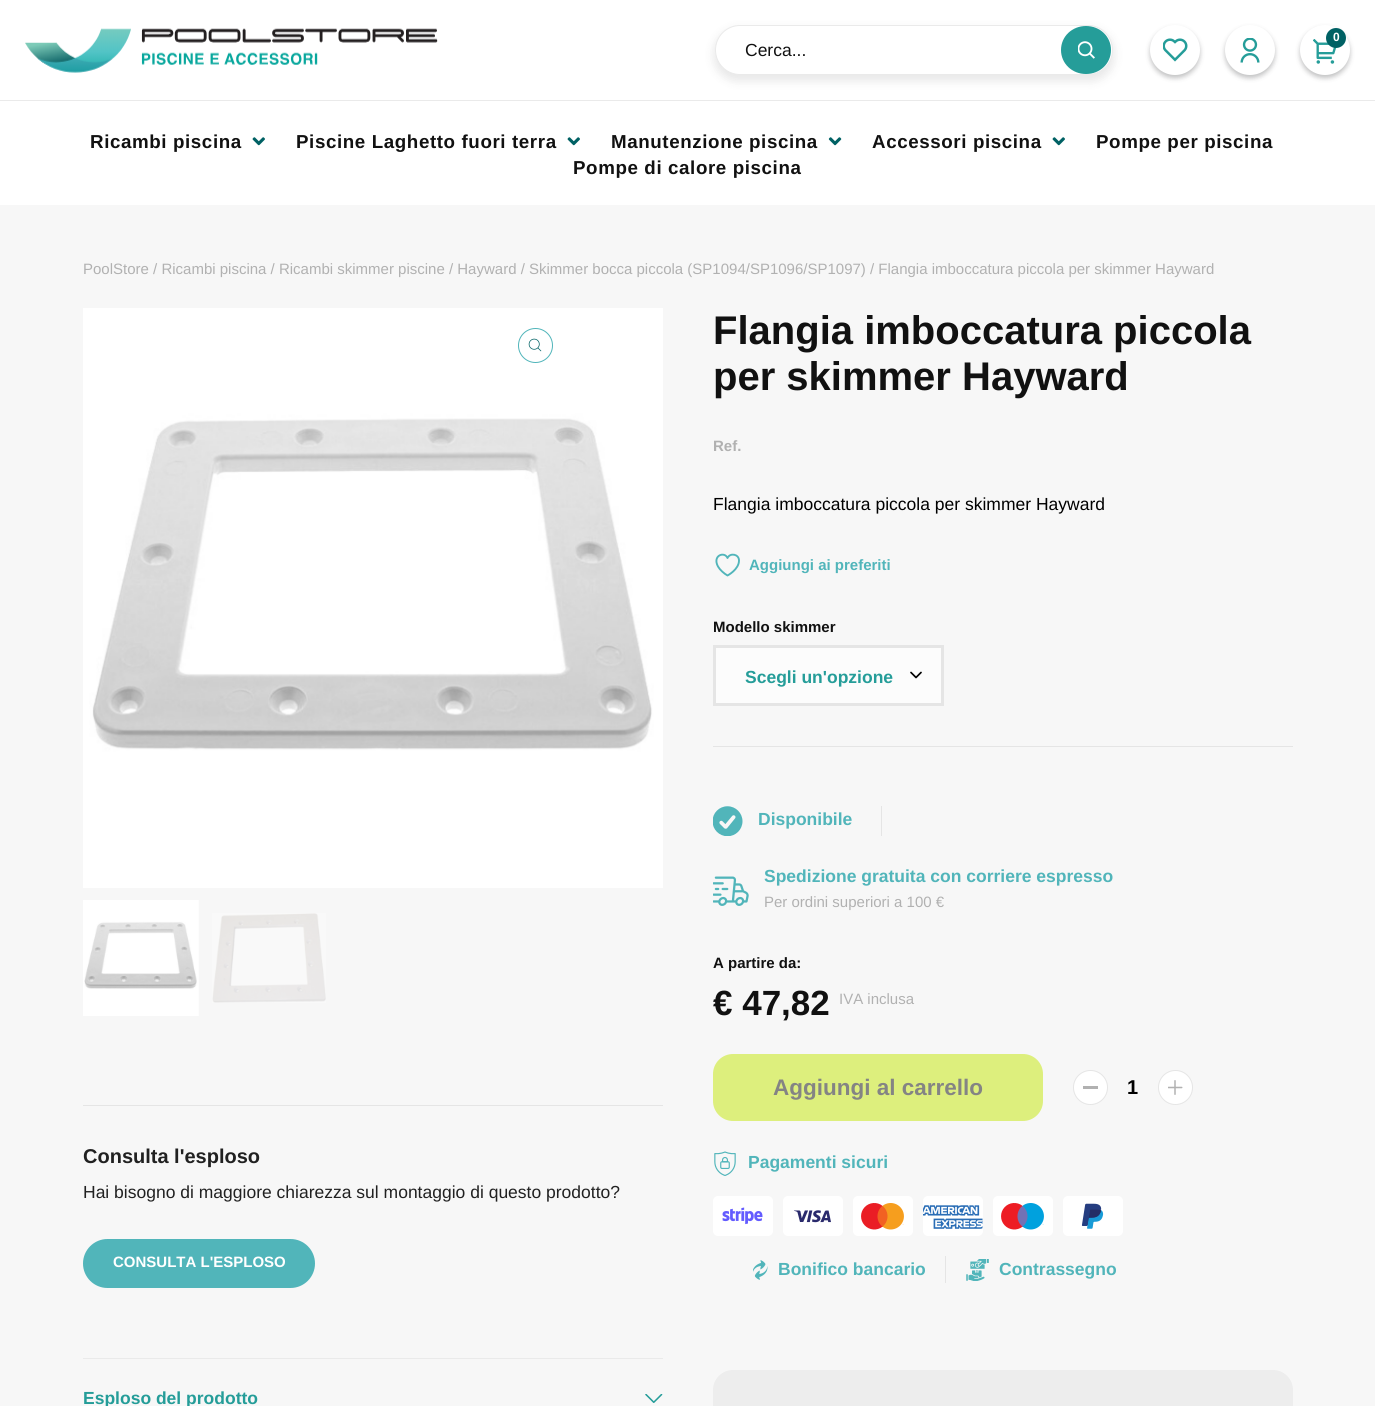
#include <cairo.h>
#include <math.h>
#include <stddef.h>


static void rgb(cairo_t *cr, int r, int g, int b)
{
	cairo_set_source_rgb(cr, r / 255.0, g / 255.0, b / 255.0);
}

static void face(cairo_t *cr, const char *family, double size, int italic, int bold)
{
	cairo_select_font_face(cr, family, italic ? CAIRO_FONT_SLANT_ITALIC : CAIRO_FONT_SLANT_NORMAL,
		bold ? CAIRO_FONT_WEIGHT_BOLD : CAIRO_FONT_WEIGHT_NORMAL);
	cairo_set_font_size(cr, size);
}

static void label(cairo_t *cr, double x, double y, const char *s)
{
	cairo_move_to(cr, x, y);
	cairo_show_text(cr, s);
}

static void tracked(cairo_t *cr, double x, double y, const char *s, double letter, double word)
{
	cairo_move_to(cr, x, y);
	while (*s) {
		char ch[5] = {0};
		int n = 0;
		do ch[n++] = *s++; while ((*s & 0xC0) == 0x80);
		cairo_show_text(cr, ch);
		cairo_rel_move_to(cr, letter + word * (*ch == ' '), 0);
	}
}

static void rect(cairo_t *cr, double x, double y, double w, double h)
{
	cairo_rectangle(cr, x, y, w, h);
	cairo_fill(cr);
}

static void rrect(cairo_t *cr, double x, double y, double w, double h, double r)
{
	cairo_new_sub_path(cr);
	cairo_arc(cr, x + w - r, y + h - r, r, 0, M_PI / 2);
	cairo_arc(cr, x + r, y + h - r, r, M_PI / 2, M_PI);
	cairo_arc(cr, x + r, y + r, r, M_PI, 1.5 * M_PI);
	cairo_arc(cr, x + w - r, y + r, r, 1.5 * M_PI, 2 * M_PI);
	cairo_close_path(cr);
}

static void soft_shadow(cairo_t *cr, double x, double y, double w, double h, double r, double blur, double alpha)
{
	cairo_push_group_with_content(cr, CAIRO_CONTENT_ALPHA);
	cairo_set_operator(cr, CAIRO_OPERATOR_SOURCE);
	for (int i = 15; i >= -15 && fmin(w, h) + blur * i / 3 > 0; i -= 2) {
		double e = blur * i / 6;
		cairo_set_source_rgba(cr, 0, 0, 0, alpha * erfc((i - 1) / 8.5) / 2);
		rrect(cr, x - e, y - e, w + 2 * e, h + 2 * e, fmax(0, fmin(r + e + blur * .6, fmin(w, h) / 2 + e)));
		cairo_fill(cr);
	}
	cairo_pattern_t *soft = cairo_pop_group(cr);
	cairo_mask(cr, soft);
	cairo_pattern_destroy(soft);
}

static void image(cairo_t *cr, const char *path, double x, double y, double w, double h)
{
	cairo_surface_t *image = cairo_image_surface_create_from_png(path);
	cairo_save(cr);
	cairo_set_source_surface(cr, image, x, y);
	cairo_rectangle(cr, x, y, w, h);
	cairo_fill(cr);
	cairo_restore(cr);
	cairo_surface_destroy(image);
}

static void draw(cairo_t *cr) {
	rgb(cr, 247, 247, 247);
	cairo_paint(cr);
	rgb(cr, 255, 255, 255);
	rect(cr, 0, 0, 1375, 205);
	image(cr, "image0.png", 25, 28, 413, 45);
	rgb(cr, 32, 33, 36);
	soft_shadow(cr, 1150, 28, 50, 50, 25, 2.5, 0.28);
	rgb(cr, 255, 255, 255);
	cairo_arc(cr, 1175, 50, 25, 0, 2 * M_PI);
	cairo_fill(cr);
	image(cr, "image1.png", 1163, 38, 25, 24);
	rgb(cr, 32, 33, 36);
	soft_shadow(cr, 1225, 28, 50, 50, 25, 2.5, 0.28);
	rgb(cr, 255, 255, 255);
	cairo_arc(cr, 1250, 50, 25, 0, 2 * M_PI);
	cairo_fill(cr);
	image(cr, "image2.png", 1240, 38, 20, 25);
	rgb(cr, 32, 33, 36);
	soft_shadow(cr, 1300, 28, 50, 50, 25, 2.5, 0.28);
	rgb(cr, 255, 255, 255);
	cairo_arc(cr, 1325, 50, 25, 0, 2 * M_PI);
	cairo_fill(cr);
	image(cr, "image3.png", 1313, 39, 24, 25);
	rgb(cr, 0, 97, 100);
	cairo_arc(cr, 1336, 38, 10, 0, 2 * M_PI);
	cairo_fill(cr);
	face(cr, "Liberation Sans", 12, 0, 1);
	rgb(cr, 255, 255, 255);
	label(cr, 1333, 41, "0");
	rgb(cr, 32, 33, 36);
	soft_shadow(cr, 714, 29, 400, 52, 26, 5, 0.11);
	rgb(cr, 255, 255, 255);
	rrect(cr, 715.5, 25.5, 397, 49, 24.5);
	cairo_fill_preserve(cr);
	rgb(cr, 234, 234, 234);
	cairo_set_line_width(cr, 1);
	cairo_stroke(cr);
	face(cr, "Liberation Sans", 17.5, 0, 0);
	rgb(cr, 17, 17, 17);
	label(cr, 745, 56, "Cerca...");
	rgb(cr, 37, 157, 153);
	cairo_new_path(cr);
	cairo_move_to(cr, 1086, 26);
	cairo_curve_to(cr, 1100, 26, 1111, 36.5, 1111, 50);
	cairo_curve_to(cr, 1111, 63.5, 1100, 74, 1086, 74);
	cairo_curve_to(cr, 1072, 74, 1061, 63.5, 1061, 50);
	cairo_curve_to(cr, 1061, 36.5, 1072, 26, 1086, 26);
	cairo_close_path(cr);
	cairo_fill(cr);
	image(cr, "image4.png", 1078, 41, 17, 18);
	rgb(cr, 234, 234, 234);
	rect(cr, 0, 100, 1375, 1);
	face(cr, "Liberation Sans", 18.75, 0, 1);
	rgb(cr, 17, 17, 17);
	tracked(cr, 90, 148, "Ricambi piscina", 0.6, 0);
	image(cr, "image5.png", 252, 137, 13, 9);
	tracked(cr, 296, 148, "Piscine Laghetto fuori terra", 0.6, 0);
	image(cr, "image5.png", 567, 137, 13, 9);
	tracked(cr, 611, 148, "Manutenzione piscina", 0.6, 0);
	image(cr, "image6.png", 828, 137, 14, 9);
	tracked(cr, 872, 148, "Accessori piscina", 0.6, 0);
	image(cr, "image5.png", 1052, 137, 13, 9);
	tracked(cr, 1096, 148, "Pompe per piscina", 0.6, 0);
	tracked(cr, 573, 174, "Pompe di calore piscina", 0.6, 0);
	face(cr, "Liberation Sans", 15, 0, 0);
	rgb(cr, 177, 177, 177);
	label(cr, 83, 274, "PoolStore / Ricambi piscina / Ricambi skimmer piscine / Hayward / Skimmer bocca piccola (SP1094/SP1096/SP1097) / Flangia imboccatura piccola per skimmer Hayward");
	image(cr, "image7.png", 83, 308, 580, 580);
	cairo_arc(cr, 535.5, 345.5, 17, 0, 2 * M_PI);
	rgb(cr, 81, 181, 186);
	cairo_stroke(cr);
	image(cr, "image8.png", 528, 338, 14, 14);
	image(cr, "image9.png", 83, 900, 116, 116);
	image(cr, "image10.png", 212, 913, 114, 90);
	rgb(cr, 229, 229, 229);
	rect(cr, 83, 1105, 580, 1);
	face(cr, "Liberation Sans", 20, 0, 1);
	rgb(cr, 33, 33, 33);
	label(cr, 83, 1163, "Consulta l'esploso");
	face(cr, "Liberation Sans", 17.5, 0, 0);
	label(cr, 83, 1198, "Hai bisogno di maggiore chiarezza sul montaggio di questo prodotto?");
	rgb(cr, 81, 181, 186);
	rrect(cr, 83, 1239, 232, 49, 24.5);
	cairo_fill(cr);
	face(cr, "Liberation Sans", 15, 0, 1);
	rgb(cr, 255, 255, 255);
	label(cr, 113, 1267, "CONSULTA L'ESPLOSO");
	rgb(cr, 234, 234, 234);
	rect(cr, 83, 1358, 580, 1);
	image(cr, "image11.png", 645, 1394, 18, 9);
	face(cr, "Liberation Sans", 17.5, 0, 1);
	rgb(cr, 37, 157, 153);
	label(cr, 83, 1404, "Esploso del prodotto");
	face(cr, "Liberation Sans", 40, 0, 1);
	rgb(cr, 17, 17, 17);
	label(cr, 713, 344, "Flangia imboccatura piccola");
	label(cr, 713, 390, "per skimmer Hayward");
	face(cr, "Liberation Sans", 15, 0, 1);
	rgb(cr, 177, 177, 177);
	label(cr, 713, 451, "Ref.");
	face(cr, "Liberation Sans", 17.5, 0, 0);
	rgb(cr, 0, 0, 0);
	label(cr, 713, 510, "Flangia imboccatura piccola per skimmer Hayward");
	cairo_new_path(cr);
	cairo_move_to(cr, 739, 560.5);
	cairo_curve_to(cr, 739, 554, 730, 552.5, 727.5, 558);
	cairo_curve_to(cr, 724.5, 551, 712, 555.5, 718, 566.5);
	cairo_curve_to(cr, 720, 570, 724, 573.5, 727.5, 575.5);
	cairo_curve_to(cr, 727.5, 575.5, 739, 569.5, 739, 560.5);
	cairo_close_path(cr);
	rgb(cr, 81, 181, 186);
	cairo_set_line_width(cr, 1.9);
	cairo_set_line_cap(cr, CAIRO_LINE_CAP_ROUND);
	cairo_set_line_join(cr, CAIRO_LINE_JOIN_ROUND);
	cairo_stroke(cr);
	face(cr, "Liberation Sans", 15, 0, 1);
	label(cr, 749, 570, "Aggiungi ai preferiti");
	rgb(cr, 17, 17, 17);
	label(cr, 713, 632, "Modello skimmer");
	rgb(cr, 252, 252, 252);
	rect(cr, 716, 648, 225, 55);
	cairo_new_path(cr);
	cairo_move_to(cr, 911, 672.5);
	cairo_line_to(cr, 916, 677.5);
	cairo_line_to(cr, 921, 672.5);
	rgb(cr, 0, 0, 0);
	cairo_set_line_width(cr, 1.7);
	cairo_stroke(cr);
	cairo_rectangle(cr, 714.5, 646.5, 228, 58);
	rgb(cr, 229, 229, 229);
	cairo_set_line_width(cr, 3);
	cairo_set_line_cap(cr, CAIRO_LINE_CAP_BUTT);
	cairo_set_line_join(cr, CAIRO_LINE_JOIN_MITER);
	cairo_stroke(cr);
	face(cr, "Liberation Sans", 17.5, 0, 1);
	rgb(cr, 37, 157, 153);
	label(cr, 745, 683, "Scegli un'opzione");
	rgb(cr, 229, 229, 229);
	rect(cr, 713, 746, 580, 1);
	rect(cr, 881, 806, 1, 30);
	image(cr, "image12.png", 713, 806, 30, 30);
	rgb(cr, 81, 181, 186);
	label(cr, 758, 825, "Disponibile");
	image(cr, "image13.png", 713, 876, 36, 30);
	label(cr, 764, 882, "Spedizione gratuita con corriere espresso");
	face(cr, "Liberation Sans", 15, 0, 0);
	rgb(cr, 177, 177, 177);
	label(cr, 764, 907, "Per ordini superiori a 100 €");
	face(cr, "Liberation Sans", 15, 0, 1);
	rgb(cr, 17, 17, 17);
	label(cr, 713, 968, "A partire da:");
	face(cr, "Liberation Sans", 35, 0, 1);
	label(cr, 713, 1015, "€ 47,82");
	face(cr, "Liberation Sans", 15, 0, 0);
	rgb(cr, 177, 177, 177);
	label(cr, 839, 1004, "IVA inclusa");
	rgb(cr, 221, 239, 125);
	rrect(cr, 713, 1054, 330, 67, 20);
	cairo_fill(cr);
	face(cr, "Liberation Sans", 22.5, 0, 1);
	rgb(cr, 132, 132, 132);
	label(cr, 773, 1095, "Aggiungi al carrello");
	rgb(cr, 255, 255, 255);
	cairo_new_path(cr);
	cairo_arc(cr, 1090.5, 1087.5, 17, 0, 2 * M_PI);
	cairo_fill_preserve(cr);
	rgb(cr, 229, 229, 229);
	cairo_set_line_width(cr, 1);
	cairo_stroke(cr);
	rgb(cr, 177, 177, 177);
	rect(cr, 1083, 1086, 15, 3);
	face(cr, "Liberation Sans", 20, 0, 1);
	rgb(cr, 0, 0, 0);
	label(cr, 1127, 1094, "1");
	rgb(cr, 255, 255, 255);
	cairo_new_path(cr);
	cairo_arc(cr, 1175.5, 1087.5, 17, 0, 2 * M_PI);
	cairo_fill_preserve(cr);
	rgb(cr, 229, 229, 229);
	cairo_stroke(cr);
	image(cr, "image14.png", 1168, 1080, 15, 15);
	image(cr, "image15.png", 714, 1151, 22, 25);
	face(cr, "Liberation Sans", 17.5, 0, 1);
	rgb(cr, 81, 181, 186);
	label(cr, 748, 1168, "Pagamenti sicuri");
	image(cr, "image16.png", 713, 1196, 60, 40);
	image(cr, "image17.png", 783, 1196, 60, 40);
	image(cr, "image18.png", 853, 1196, 60, 40);
	image(cr, "image19.png", 923, 1196, 60, 40);
	image(cr, "image20.png", 993, 1196, 60, 40);
	image(cr, "image21.png", 1063, 1196, 60, 40);
	rgb(cr, 229, 229, 229);
	rect(cr, 945, 1256, 1, 27);
	image(cr, "image22.png", 753, 1260, 15, 20);
	rgb(cr, 81, 181, 186);
	label(cr, 778, 1275, "Bonifico bancario");
	image(cr, "image23.png", 966, 1259, 23, 22);
	label(cr, 999, 1275, "Contrassegno");
	rgb(cr, 237, 237, 237);
	rrect(cr, 713, 1370, 580, 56, 20);
	cairo_fill(cr);
}

int main(void) {
	cairo_surface_t *surface = cairo_image_surface_create(CAIRO_FORMAT_RGB24, 1375, 1406);
	cairo_t *cr = cairo_create(surface);
	cairo_font_options_t *options = cairo_font_options_create();
	cairo_font_options_set_hint_metrics(options, CAIRO_HINT_METRICS_OFF);
	cairo_font_options_set_hint_style(options, CAIRO_HINT_STYLE_NONE);
	cairo_set_font_options(cr, options);
	cairo_set_miter_limit(cr, 4);
	draw(cr);
	cairo_surface_write_to_png(surface, "render.png");
	cairo_font_options_destroy(options);
	cairo_destroy(cr);
	cairo_surface_destroy(surface);
	return 0;
}
